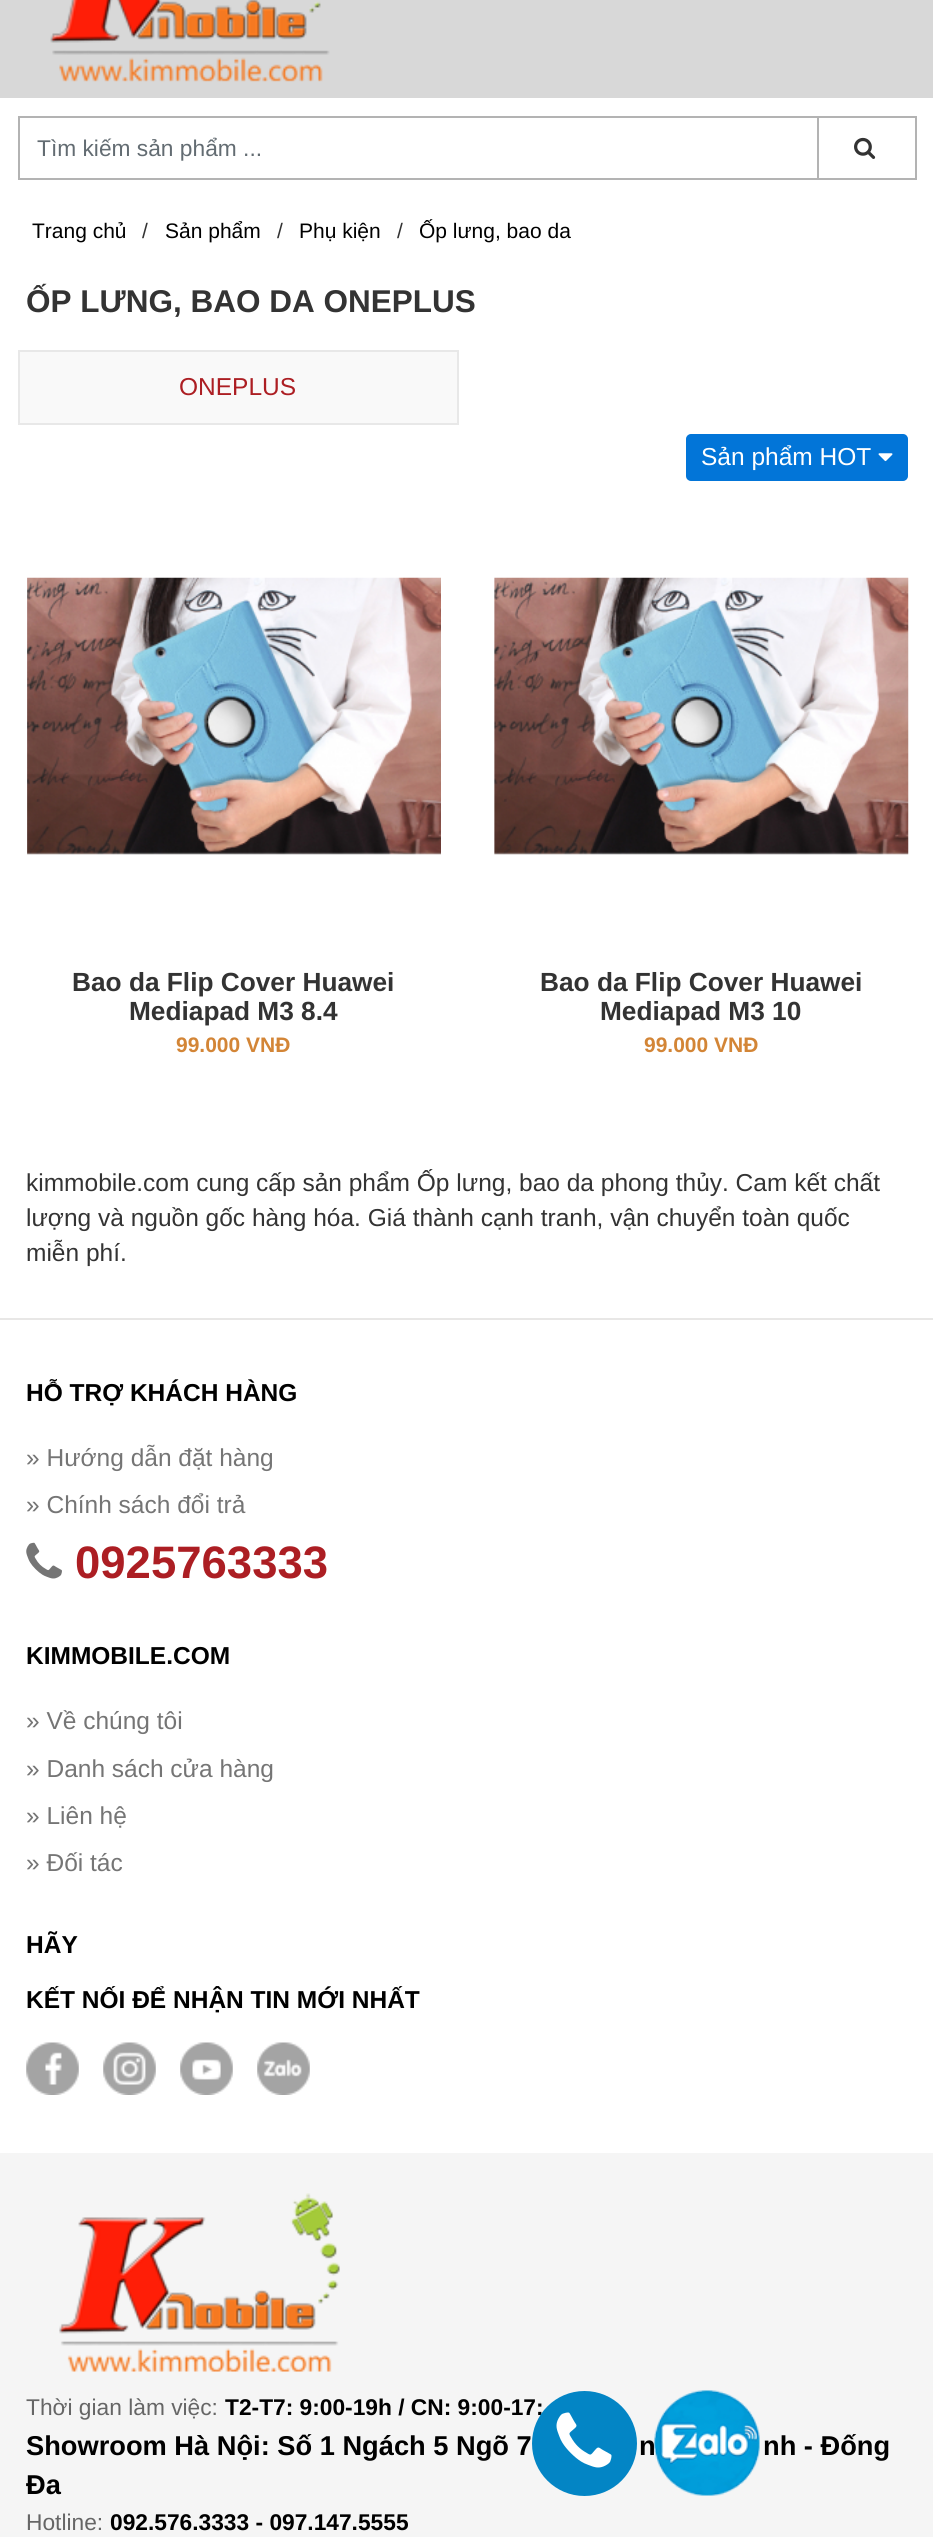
#include <cairo.h>
#include <math.h>
#include <stddef.h>


static void rgb(cairo_t *cr, int r, int g, int b)
{
	cairo_set_source_rgb(cr, r / 255.0, g / 255.0, b / 255.0);
}

static void face(cairo_t *cr, const char *family, double size, int italic, int bold)
{
	cairo_select_font_face(cr, family, italic ? CAIRO_FONT_SLANT_ITALIC : CAIRO_FONT_SLANT_NORMAL,
		bold ? CAIRO_FONT_WEIGHT_BOLD : CAIRO_FONT_WEIGHT_NORMAL);
	cairo_set_font_size(cr, size);
}

static void label(cairo_t *cr, double x, double y, const char *s)
{
	cairo_move_to(cr, x, y);
	cairo_show_text(cr, s);
}

static void rect(cairo_t *cr, double x, double y, double w, double h)
{
	cairo_rectangle(cr, x, y, w, h);
	cairo_fill(cr);
}

static void rrect(cairo_t *cr, double x, double y, double w, double h, double r)
{
	cairo_new_sub_path(cr);
	cairo_arc(cr, x + w - r, y + h - r, r, 0, M_PI / 2);
	cairo_arc(cr, x + r, y + h - r, r, M_PI / 2, M_PI);
	cairo_arc(cr, x + r, y + r, r, M_PI, 1.5 * M_PI);
	cairo_arc(cr, x + w - r, y + r, r, 1.5 * M_PI, 2 * M_PI);
	cairo_close_path(cr);
}

static void image(cairo_t *cr, const char *path, double x, double y, double w, double h)
{
	cairo_surface_t *image = cairo_image_surface_create_from_png(path);
	cairo_save(cr);
	cairo_set_source_surface(cr, image, x, y);
	cairo_rectangle(cr, x, y, w, h);
	cairo_fill(cr);
	cairo_restore(cr);
	cairo_surface_destroy(image);
}

static void draw(cairo_t *cr) {
	rgb(cr, 255, 255, 255);
	cairo_paint(cr);
	rgb(cr, 216, 216, 216);
	rect(cr, 0, 0, 933, 98);
	image(cr, "image0.png", 50, 0, 280, 82);
	cairo_rectangle(cr, 19, 117, 897, 62);
	rgb(cr, 179, 179, 179);
	cairo_stroke(cr);
	face(cr, "Liberation Sans", 22.75, 0, 0);
	rgb(cr, 99, 108, 114);
	label(cr, 37, 156, "Tìm kiếm sản phẩm ...");
	cairo_rectangle(cr, 818, 117, 98, 62);
	rgb(cr, 179, 179, 179);
	cairo_stroke(cr);
	image(cr, "image1.png", 854, 137, 22, 22);
	face(cr, "Liberation Sans", 21, 0, 0);
	rgb(cr, 0, 0, 0);
	label(cr, 32, 238, "Trang chủ");
	rgb(cr, 51, 51, 51);
	label(cr, 142, 238, "/");
	rgb(cr, 0, 0, 0);
	label(cr, 165, 238, "Sản phẩm");
	rgb(cr, 51, 51, 51);
	label(cr, 277, 238, "/");
	rgb(cr, 0, 0, 0);
	label(cr, 299, 238, "Phụ kiện");
	rgb(cr, 51, 51, 51);
	label(cr, 397, 238, "/");
	rgb(cr, 0, 0, 0);
	label(cr, 419, 238, "Ốp lưng, bao da");
	face(cr, "Liberation Sans", 31.5, 0, 1);
	rgb(cr, 51, 51, 51);
	label(cr, 26, 312, "ỐP LƯNG, BAO DA ONEPLUS");
	rgb(cr, 249, 249, 249);
	cairo_rectangle(cr, 19, 351, 439, 73);
	cairo_fill_preserve(cr);
	rgb(cr, 232, 232, 232);
	cairo_stroke(cr);
	face(cr, "Liberation Sans", 24.5, 0, 0);
	rgb(cr, 172, 30, 35);
	label(cr, 179, 395, "ONEPLUS");
	rgb(cr, 2, 117, 216);
	rrect(cr, 687, 435, 220, 45, 4);
	cairo_fill_preserve(cr);
	cairo_stroke(cr);
	rgb(cr, 255, 255, 255);
	label(cr, 701, 465, "Sản phẩm HOT");
	image(cr, "image2.png", 878, 453, 15, 9);
	image(cr, "image3.png", 27, 577, 414, 278);
	face(cr, "Liberation Sans", 26.25, 0, 1);
	rgb(cr, 51, 51, 51);
	label(cr, 72, 991, "Bao da Flip Cover Huawei");
	label(cr, 129, 1020, "Mediapad M3 8.4");
	face(cr, "Liberation Sans", 21, 0, 1);
	rgb(cr, 211, 133, 54);
	label(cr, 176, 1052, "99.000 VNĐ");
	image(cr, "image4.png", 494, 577, 415, 278);
	face(cr, "Liberation Sans", 26.25, 0, 1);
	rgb(cr, 51, 51, 51);
	label(cr, 540, 991, "Bao da Flip Cover Huawei");
	label(cr, 600, 1020, "Mediapad M3 10");
	face(cr, "Liberation Sans", 21, 0, 1);
	rgb(cr, 211, 133, 54);
	label(cr, 644, 1052, "99.000 VNĐ");
	face(cr, "Liberation Sans", 24.5, 0, 0);
	rgb(cr, 51, 51, 51);
	label(cr, 26, 1191, "kimmobile.com cung cấp sản phẩm Ốp lưng, bao da phong thủy. Cam kết chất");
	label(cr, 26, 1226, "lượng và nguồn gốc hàng hóa. Giá thành cạnh tranh, vận chuyển toàn quốc");
	label(cr, 26, 1261, "miễn phí.");
	rgb(cr, 232, 231, 230);
	rect(cr, 0, 1318, 933, 2);
	face(cr, "Liberation Sans", 24.5, 0, 1);
	rgb(cr, 0, 0, 0);
	label(cr, 26, 1401, "HỖ TRỢ KHÁCH HÀNG");
	face(cr, "Liberation Sans", 24.5, 0, 0);
	rgb(cr, 117, 117, 117);
	label(cr, 26, 1466, "» Hướng dẫn đặt hàng");
	label(cr, 26, 1513, "» Chính sách đổi trả");
	image(cr, "image5.png", 26, 1542, 36, 37);
	face(cr, "Liberation Sans", 45.5, 0, 1);
	rgb(cr, 172, 30, 35);
	label(cr, 75, 1578, "0925763333");
	face(cr, "Liberation Sans", 24.5, 0, 1);
	rgb(cr, 0, 0, 0);
	label(cr, 26, 1664, "KIMMOBILE.COM");
	face(cr, "Liberation Sans", 24.5, 0, 0);
	rgb(cr, 117, 117, 117);
	label(cr, 26, 1729, "» Về chúng tôi");
	label(cr, 26, 1777, "» Danh sách cửa hàng");
	label(cr, 26, 1824, "» Liên hệ");
	label(cr, 26, 1871, "» Đối tác");
	face(cr, "Liberation Sans", 24.5, 0, 1);
	rgb(cr, 0, 0, 0);
	label(cr, 26, 1953, "HÃY");
	label(cr, 26, 2008, "KẾT NỐI ĐỂ NHẬN TIN MỚI NHẤT");
	image(cr, "image6.png", 26, 2042, 53, 53);
	image(cr, "image7.png", 103, 2042, 53, 53);
	image(cr, "image8.png", 180, 2042, 53, 53);
	image(cr, "image9.png", 257, 2042, 53, 53);
	rgb(cr, 245, 245, 245);
	rect(cr, 0, 2153, 933, 384);
	image(cr, "image10.png", 59, 2193, 281, 179);
	face(cr, "Liberation Sans", 22.75, 0, 0);
	rgb(cr, 102, 102, 102);
	label(cr, 26, 2415, "Thời gian làm việc:");
	face(cr, "Liberation Sans", 22.75, 0, 1);
	rgb(cr, 0, 0, 0);
	label(cr, 225, 2415, "T2-T7: 9:00-19h / CN: 9:00-17:");
	face(cr, "Liberation Sans", 27.25, 0, 1);
	label(cr, 26, 2455, "Showroom Hà Nội: Số 1 Ngách 5 Ngõ 7");
	label(cr, 639, 2455, "n");
	label(cr, 763, 2455, "nh - Đống");
	label(cr, 26, 2494, "Đa");
	face(cr, "Liberation Sans", 22.75, 0, 0);
	rgb(cr, 102, 102, 102);
	label(cr, 26, 2530, "Hotline:");
	face(cr, "Liberation Sans", 22.75, 0, 1);
	rgb(cr, 0, 0, 0);
	label(cr, 110, 2530, "092.576.3333 - 097.147.5555");
	rgb(cr, 3, 133, 197);
	cairo_new_path(cr);
	cairo_arc(cr, 584.5, 2443.5, 52.5, 0, 2 * M_PI);
	cairo_fill(cr);
	image(cr, "image11.png", 556, 2412, 56, 56);
	image(cr, "image12.png", 654, 2390, 106, 106);
}

int main(void) {
	cairo_surface_t *surface = cairo_image_surface_create(CAIRO_FORMAT_RGB24, 933, 2537);
	cairo_t *cr = cairo_create(surface);
	cairo_font_options_t *options = cairo_font_options_create();
	cairo_font_options_set_hint_metrics(options, CAIRO_HINT_METRICS_OFF);
	cairo_font_options_set_hint_style(options, CAIRO_HINT_STYLE_NONE);
	cairo_set_font_options(cr, options);
	cairo_set_miter_limit(cr, 4);
	draw(cr);
	cairo_surface_write_to_png(surface, "render.png");
	cairo_font_options_destroy(options);
	cairo_destroy(cr);
	cairo_surface_destroy(surface);
	return 0;
}
